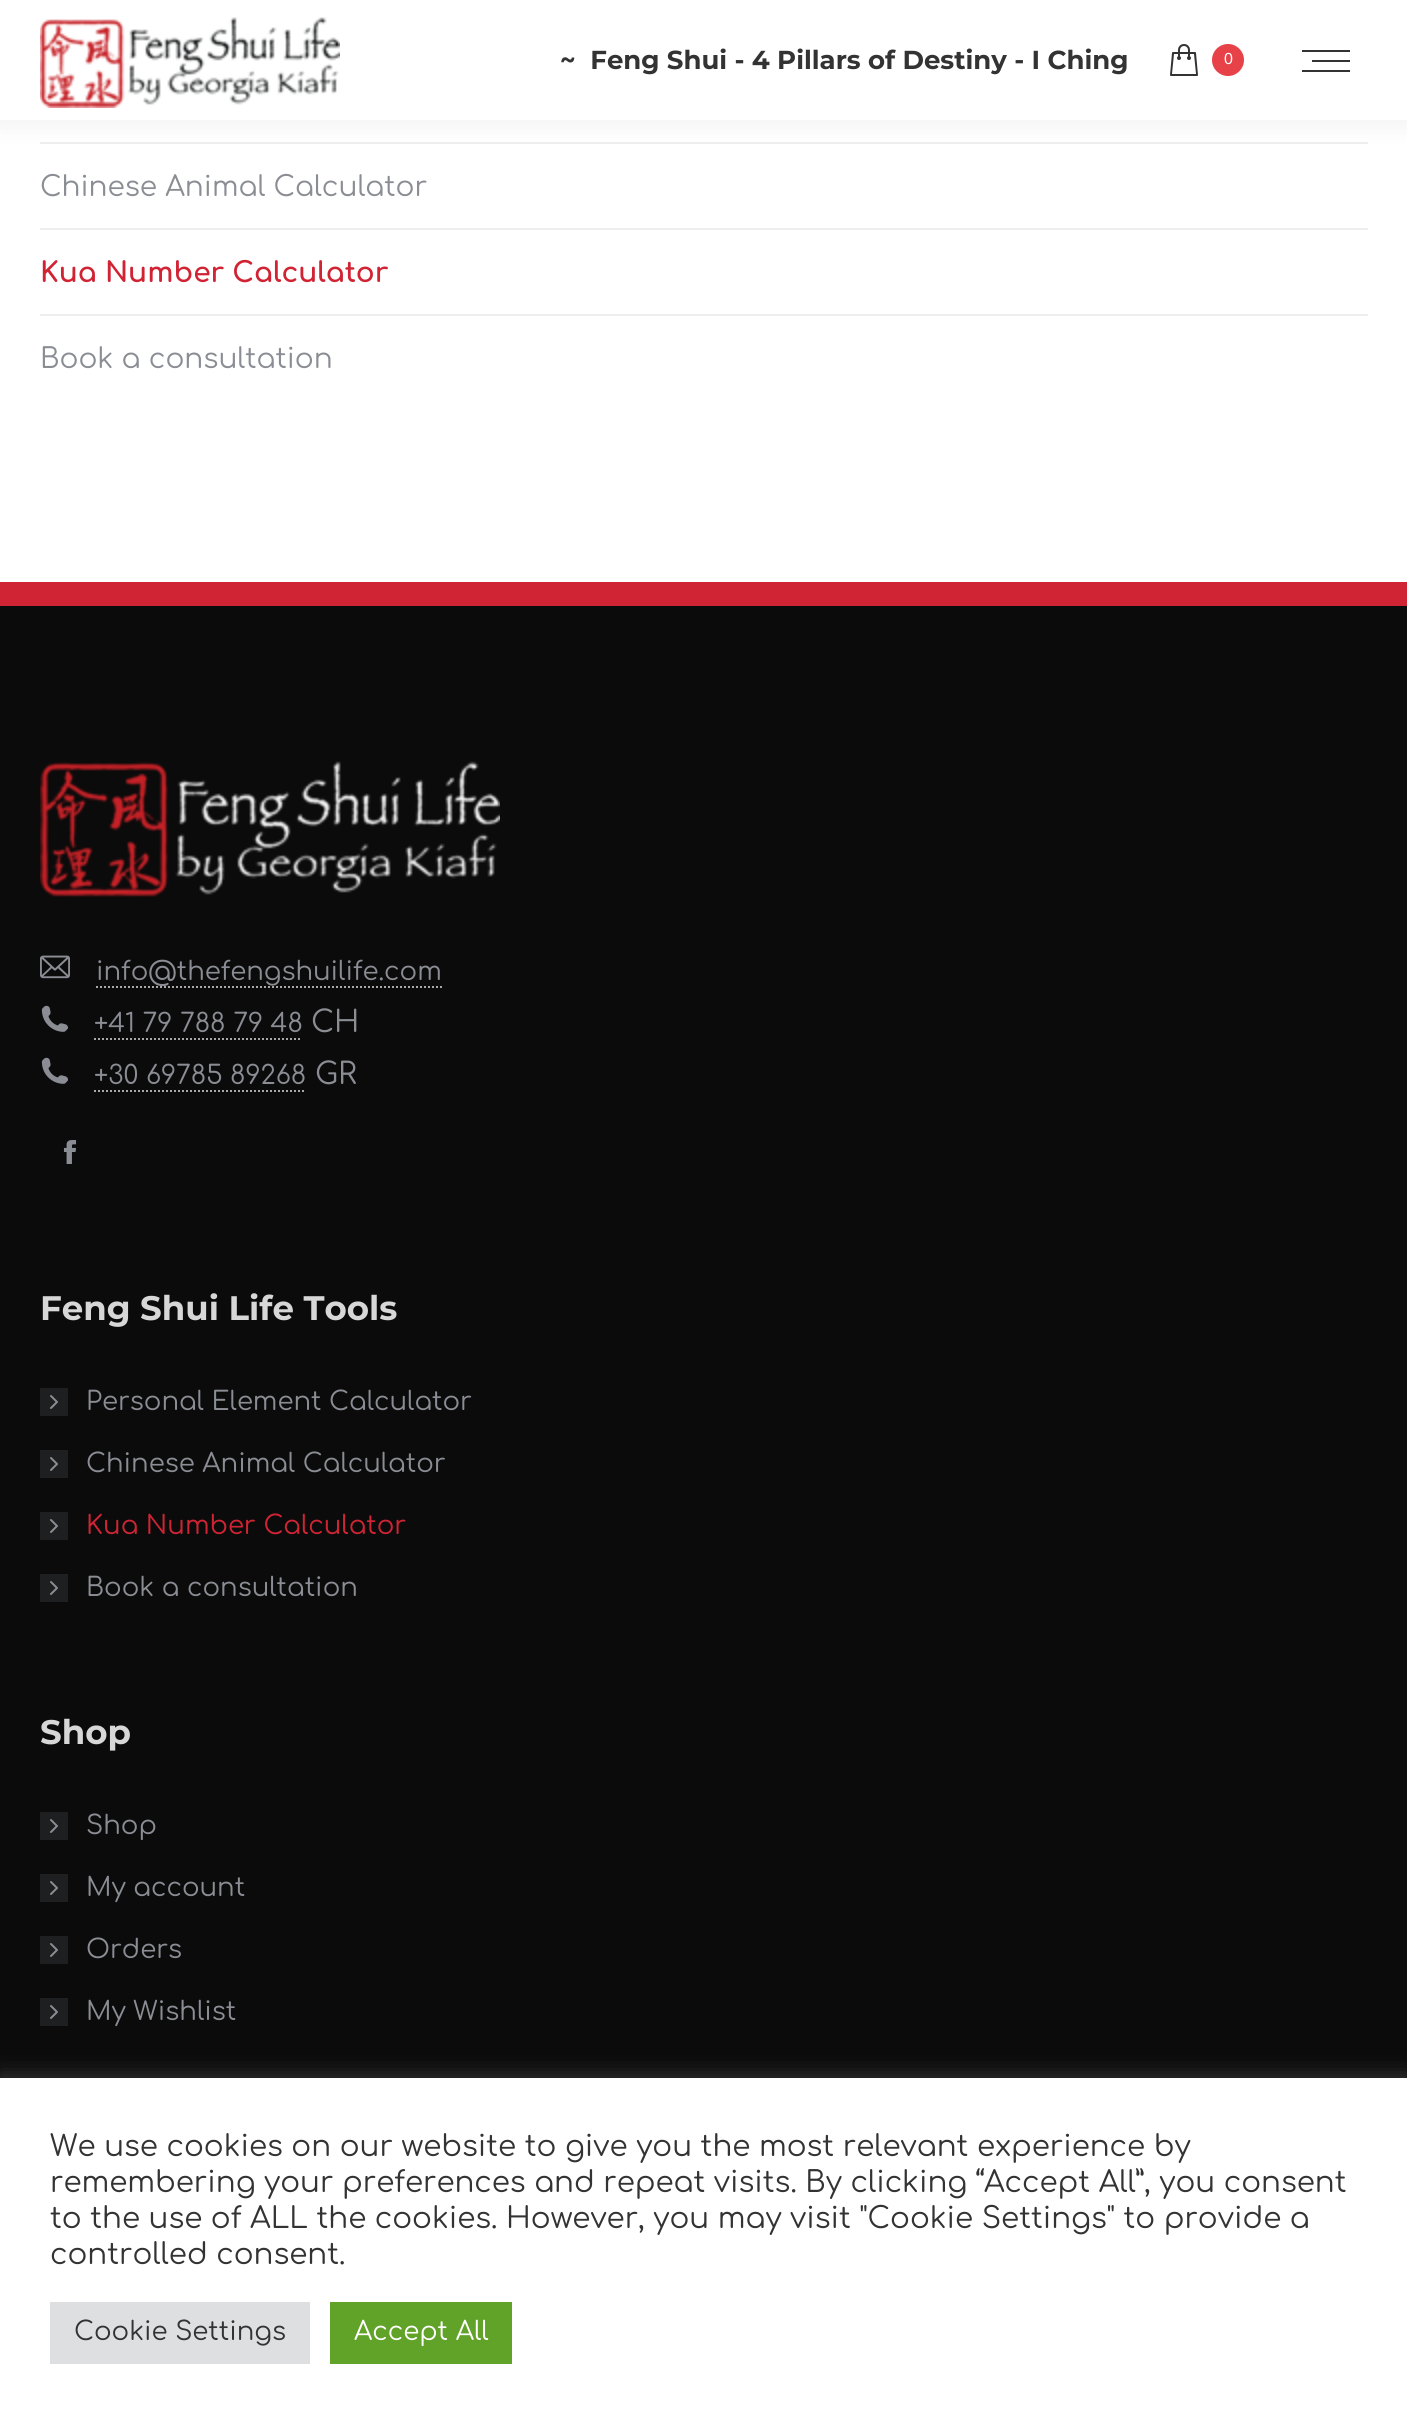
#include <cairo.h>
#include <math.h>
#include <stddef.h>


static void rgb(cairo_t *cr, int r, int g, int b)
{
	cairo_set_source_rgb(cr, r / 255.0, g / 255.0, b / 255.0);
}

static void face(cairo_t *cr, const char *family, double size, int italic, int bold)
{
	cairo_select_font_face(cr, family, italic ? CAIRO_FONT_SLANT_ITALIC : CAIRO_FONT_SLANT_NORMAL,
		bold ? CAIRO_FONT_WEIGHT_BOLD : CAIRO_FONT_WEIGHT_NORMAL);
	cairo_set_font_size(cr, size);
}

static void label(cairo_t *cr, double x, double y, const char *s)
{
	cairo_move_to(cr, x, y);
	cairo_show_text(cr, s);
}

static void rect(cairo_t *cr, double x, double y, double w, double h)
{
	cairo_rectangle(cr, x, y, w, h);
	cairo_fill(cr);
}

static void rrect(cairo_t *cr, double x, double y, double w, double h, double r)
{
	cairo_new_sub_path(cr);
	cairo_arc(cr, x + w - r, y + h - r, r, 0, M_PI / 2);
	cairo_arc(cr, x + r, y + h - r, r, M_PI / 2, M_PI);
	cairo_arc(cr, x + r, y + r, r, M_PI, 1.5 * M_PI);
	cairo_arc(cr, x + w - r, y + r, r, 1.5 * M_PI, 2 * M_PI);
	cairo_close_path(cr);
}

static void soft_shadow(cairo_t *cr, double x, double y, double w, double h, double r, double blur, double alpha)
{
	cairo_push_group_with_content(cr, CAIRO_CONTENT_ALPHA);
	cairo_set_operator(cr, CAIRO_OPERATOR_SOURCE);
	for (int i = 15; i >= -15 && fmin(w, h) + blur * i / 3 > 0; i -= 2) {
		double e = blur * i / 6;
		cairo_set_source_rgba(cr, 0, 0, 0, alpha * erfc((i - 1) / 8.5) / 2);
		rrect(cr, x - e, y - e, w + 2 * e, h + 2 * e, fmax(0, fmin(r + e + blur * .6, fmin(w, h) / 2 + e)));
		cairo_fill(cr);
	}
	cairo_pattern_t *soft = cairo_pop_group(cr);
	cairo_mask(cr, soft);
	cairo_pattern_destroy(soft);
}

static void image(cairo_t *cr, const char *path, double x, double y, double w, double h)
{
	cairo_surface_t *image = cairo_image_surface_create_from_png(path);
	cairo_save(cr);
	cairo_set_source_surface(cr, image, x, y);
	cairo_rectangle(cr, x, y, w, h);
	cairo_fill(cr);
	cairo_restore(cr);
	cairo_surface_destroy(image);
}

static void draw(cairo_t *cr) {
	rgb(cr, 255, 255, 255);
	cairo_paint(cr);
	rgb(cr, 238, 238, 239);
	rect(cr, 40, 142, 1328, 2);
	rgb(cr, 0, 0, 0);
	soft_shadow(cr, -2, -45, 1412, 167, 0, 15, 0.07);
	rgb(cr, 255, 255, 255);
	rect(cr, 0, 0, 1407, 120);
	image(cr, "image0.png", 40, 17, 300, 91);
	face(cr, "Montserrat", 26, 0, 1);
	rgb(cr, 51, 51, 51);
	label(cr, 560, 69, "~  Feng Shui - 4 Pillars of Destiny - I Ching");
	image(cr, "image1.png", 1170, 44, 28, 32);
	rgb(cr, 231, 66, 72);
	cairo_arc(cr, 1228, 60, 16, 0, 2 * M_PI);
	cairo_fill(cr);
	face(cr, "Liberation Sans", 16, 0, 0);
	rgb(cr, 255, 255, 255);
	label(cr, 1224, 64, "0");
	rgb(cr, 51, 51, 51);
	rect(cr, 1302, 50, 48, 2);
	rect(cr, 1312, 60, 38, 2);
	rect(cr, 1302, 70, 48, 2);
	face(cr, "Comfortaa", 28, 0, 0);
	rgb(cr, 139, 141, 148);
	label(cr, 40, 196, "Chinese Animal Calculator");
	rgb(cr, 238, 238, 239);
	rect(cr, 40, 228, 1328, 2);
	face(cr, "Comfortaa", 28, 0, 1);
	rgb(cr, 208, 36, 52);
	label(cr, 40, 282, "Kua Number Calculator");
	rgb(cr, 238, 238, 239);
	rect(cr, 40, 314, 1328, 2);
	face(cr, "Comfortaa", 28, 0, 0);
	rgb(cr, 139, 141, 148);
	label(cr, 40, 368, "Book a consultation");
	rgb(cr, 11, 11, 11);
	rect(cr, 0, 606, 1407, 1472);
	rgb(cr, 208, 36, 52);
	rect(cr, 0, 582, 1407, 24);
	image(cr, "image2.png", 40, 761, 460, 136);
	image(cr, "image3.png", 40, 955, 30, 24);
	cairo_new_path(cr);
	cairo_move_to(cr, 96, 987);
	cairo_line_to(cr, 442, 987);
	rgb(cr, 168, 168, 168);
	cairo_set_dash(cr, (double[]){2, 2}, 2, 0);
	cairo_stroke(cr);
	face(cr, "Comfortaa", 26, 0, 0);
	rgb(cr, 139, 141, 148);
	label(cr, 96, 980, "info@thefengshuilife.com");
	image(cr, "image4.png", 41, 1005, 28, 27);
	label(cr, 94, 1032, "+41 79 788 79 48");
	cairo_new_path(cr);
	cairo_move_to(cr, 94, 1039);
	cairo_line_to(cr, 302, 1039);
	rgb(cr, 168, 168, 168);
	cairo_stroke(cr);
	face(cr, "Comfortaa", 30, 0, 0);
	rgb(cr, 139, 141, 148);
	label(cr, 311, 1032, "CH");
	image(cr, "image4.png", 41, 1057, 28, 27);
	face(cr, "Comfortaa", 26, 0, 0);
	label(cr, 94, 1084, "+30 69785 89268");
	cairo_new_path(cr);
	cairo_move_to(cr, 94, 1091);
	cairo_line_to(cr, 306, 1091);
	rgb(cr, 168, 168, 168);
	cairo_stroke(cr);
	face(cr, "Comfortaa", 30, 0, 0);
	rgb(cr, 139, 141, 148);
	label(cr, 315, 1084, "GR");
	image(cr, "image5.png", 63, 1140, 14, 24);
	face(cr, "Montserrat", 34, 0, 1);
	rgb(cr, 215, 215, 215);
	label(cr, 40, 1320, "Feng Shui Life Tools");
	rgb(cr, 30, 31, 32);
	rect(cr, 40, 1388, 28, 28);
	face(cr, "Comfortaa", 26, 0, 0);
	rgb(cr, 139, 141, 148);
	label(cr, 86, 1410, "Personal Element Calculator");
	image(cr, "image6.png", 50, 1395, 8, 14);
	rgb(cr, 30, 31, 32);
	rect(cr, 40, 1450, 28, 28);
	rgb(cr, 139, 141, 148);
	label(cr, 86, 1472, "Chinese Animal Calculator");
	image(cr, "image6.png", 50, 1457, 8, 14);
	rgb(cr, 30, 31, 32);
	rect(cr, 40, 1512, 28, 28);
	rgb(cr, 208, 36, 52);
	label(cr, 86, 1534, "Kua Number Calculator");
	image(cr, "image6.png", 50, 1519, 8, 14);
	rgb(cr, 30, 31, 32);
	rect(cr, 40, 1574, 28, 28);
	rgb(cr, 139, 141, 148);
	label(cr, 86, 1596, "Book a consultation");
	image(cr, "image6.png", 50, 1581, 8, 14);
	face(cr, "Montserrat", 34, 0, 1);
	rgb(cr, 215, 215, 215);
	label(cr, 40, 1744, "Shop");
	rgb(cr, 30, 31, 32);
	rect(cr, 40, 1812, 28, 28);
	face(cr, "Comfortaa", 26, 0, 0);
	rgb(cr, 139, 141, 148);
	label(cr, 86, 1834, "Shop");
	image(cr, "image6.png", 50, 1819, 8, 14);
	rgb(cr, 30, 31, 32);
	rect(cr, 40, 1874, 28, 28);
	rgb(cr, 139, 141, 148);
	label(cr, 86, 1896, "My account");
	image(cr, "image6.png", 50, 1881, 8, 14);
	rgb(cr, 30, 31, 32);
	rect(cr, 40, 1936, 28, 28);
	rgb(cr, 139, 141, 148);
	label(cr, 86, 1958, "Orders");
	image(cr, "image6.png", 50, 1943, 8, 14);
	rgb(cr, 30, 31, 32);
	rect(cr, 40, 1998, 28, 28);
	rgb(cr, 139, 141, 148);
	label(cr, 86, 2020, "My Wishlist");
	image(cr, "image6.png", 50, 2005, 8, 14);
	rgb(cr, 172, 171, 171);
	soft_shadow(cr, 0, 2076, 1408, 346, 0, 10, 0.3);
	rgb(cr, 255, 255, 255);
	rect(cr, 0, 2078, 1407, 345);
	face(cr, "Comfortaa", 29.35, 0, 0);
	rgb(cr, 51, 51, 51);
	label(cr, 50, 2156, "We use cookies on our website to give you the most relevant experience by");
	label(cr, 50, 2192, "remembering your preferences and repeat visits. By clicking “Accept All”, you consent");
	label(cr, 50, 2228, "to the use of ALL the cookies. However, you may visit \"Cookie Settings\" to provide a");
	label(cr, 50, 2264, "controlled consent.");
	rgb(cr, 222, 223, 224);
	rect(cr, 50, 2302, 260, 62);
	face(cr, "Comfortaa", 26, 0, 0);
	rgb(cr, 51, 51, 51);
	label(cr, 74, 2340, "Cookie Settings");
	rgb(cr, 97, 162, 41);
	rect(cr, 330, 2302, 182, 62);
	rgb(cr, 255, 255, 255);
	label(cr, 354, 2340, "Accept All");
}

int main(void) {
	cairo_surface_t *surface = cairo_image_surface_create(CAIRO_FORMAT_RGB24, 1407, 2423);
	cairo_t *cr = cairo_create(surface);
	cairo_font_options_t *options = cairo_font_options_create();
	cairo_font_options_set_hint_metrics(options, CAIRO_HINT_METRICS_OFF);
	cairo_font_options_set_hint_style(options, CAIRO_HINT_STYLE_NONE);
	cairo_set_font_options(cr, options);
	cairo_set_miter_limit(cr, 4);
	draw(cr);
	cairo_surface_write_to_png(surface, "render.png");
	cairo_font_options_destroy(options);
	cairo_destroy(cr);
	cairo_surface_destroy(surface);
	return 0;
}
